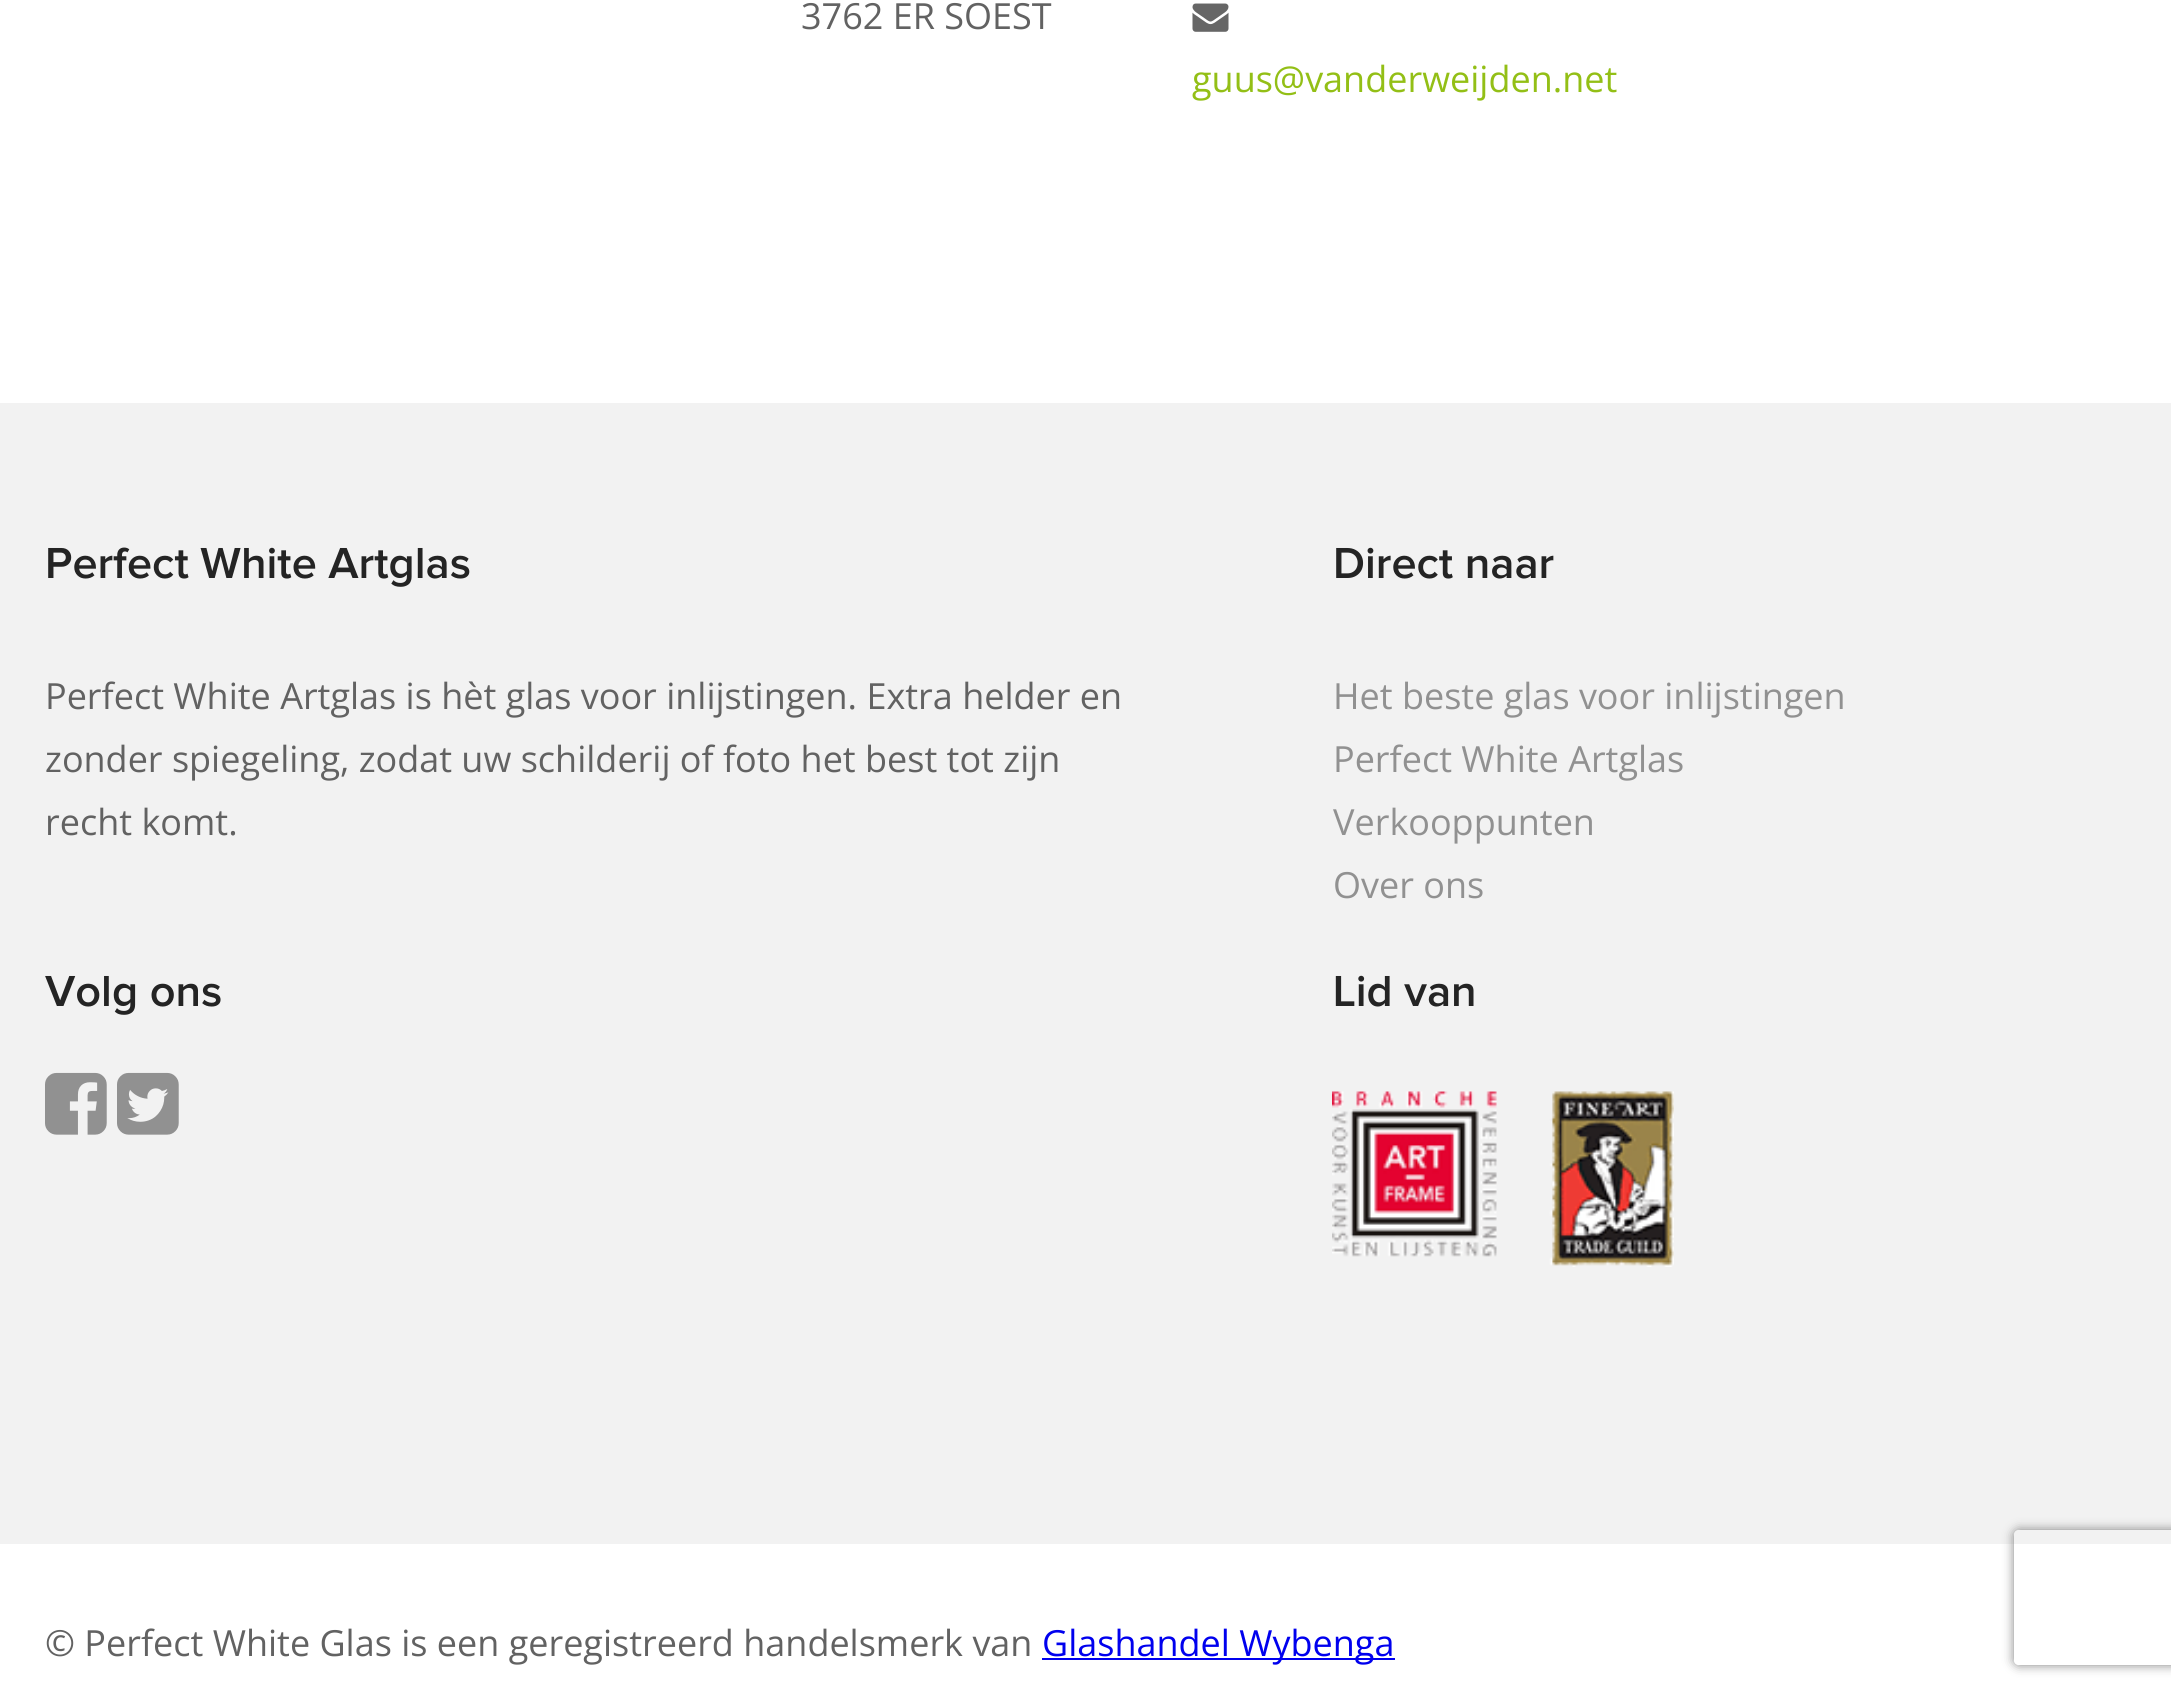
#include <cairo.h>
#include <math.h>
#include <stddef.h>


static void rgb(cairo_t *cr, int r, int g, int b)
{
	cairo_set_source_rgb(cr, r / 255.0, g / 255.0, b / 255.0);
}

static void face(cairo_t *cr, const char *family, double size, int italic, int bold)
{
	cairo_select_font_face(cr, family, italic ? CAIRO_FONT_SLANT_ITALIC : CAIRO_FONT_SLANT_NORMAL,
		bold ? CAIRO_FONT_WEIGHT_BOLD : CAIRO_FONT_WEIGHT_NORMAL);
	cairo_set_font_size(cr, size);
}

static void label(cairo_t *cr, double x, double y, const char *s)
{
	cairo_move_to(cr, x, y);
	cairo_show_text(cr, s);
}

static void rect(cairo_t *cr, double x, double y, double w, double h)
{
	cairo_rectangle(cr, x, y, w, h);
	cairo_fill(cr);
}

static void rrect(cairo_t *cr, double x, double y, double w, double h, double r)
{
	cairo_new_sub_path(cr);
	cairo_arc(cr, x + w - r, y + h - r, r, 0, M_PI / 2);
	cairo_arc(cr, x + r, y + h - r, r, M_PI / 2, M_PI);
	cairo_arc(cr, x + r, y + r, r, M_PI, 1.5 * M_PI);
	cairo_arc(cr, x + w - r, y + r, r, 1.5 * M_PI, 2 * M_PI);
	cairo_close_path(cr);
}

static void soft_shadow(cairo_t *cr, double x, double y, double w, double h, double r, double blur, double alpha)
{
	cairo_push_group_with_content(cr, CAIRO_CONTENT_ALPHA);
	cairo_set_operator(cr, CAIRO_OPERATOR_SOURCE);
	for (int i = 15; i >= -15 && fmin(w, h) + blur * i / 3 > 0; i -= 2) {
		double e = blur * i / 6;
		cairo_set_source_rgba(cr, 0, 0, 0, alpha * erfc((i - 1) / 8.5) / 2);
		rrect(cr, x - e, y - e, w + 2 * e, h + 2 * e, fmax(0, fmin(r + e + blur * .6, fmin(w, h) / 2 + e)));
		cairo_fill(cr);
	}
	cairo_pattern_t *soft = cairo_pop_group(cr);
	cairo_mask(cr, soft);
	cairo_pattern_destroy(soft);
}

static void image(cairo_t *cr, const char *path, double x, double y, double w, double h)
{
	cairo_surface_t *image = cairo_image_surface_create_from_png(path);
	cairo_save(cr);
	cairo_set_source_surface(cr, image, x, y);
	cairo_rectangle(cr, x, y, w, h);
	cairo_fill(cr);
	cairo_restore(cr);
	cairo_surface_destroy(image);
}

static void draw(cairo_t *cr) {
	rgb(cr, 255, 255, 255);
	cairo_paint(cr);
	face(cr, "Open Sans", 36, 0, 0);
	rgb(cr, 98, 98, 98);
	label(cr, 801, 29, "3762 ER SOEST");
	image(cr, "image0.png", 1192, 3, 37, 29);
	rgb(cr, 147, 191, 22);
	label(cr, 1192, 92, "guus@vanderweijden.net");
	rgb(cr, 242, 242, 242);
	rect(cr, 0, 403, 2171, 1141);
	face(cr, "Proxima Nova SemiBold", 45, 0, 0);
	rgb(cr, 36, 36, 36);
	label(cr, 45, 578, "Perfect White Artglas");
	face(cr, "Open Sans", 36, 0, 0);
	rgb(cr, 98, 98, 98);
	label(cr, 45, 709, "Perfect White Artglas is hèt glas voor inlijstingen. Extra helder en");
	label(cr, 45, 772, "zonder spiegeling, zodat uw schilderij of foto het best tot zijn");
	label(cr, 45, 835, "recht komt.");
	face(cr, "Proxima Nova SemiBold", 45, 0, 0);
	rgb(cr, 36, 36, 36);
	label(cr, 1333, 578, "Direct naar");
	face(cr, "Open Sans", 36, 0, 0);
	rgb(cr, 145, 145, 145);
	label(cr, 1333, 709, "Het beste glas voor inlijstingen");
	label(cr, 1333, 772, "Perfect White Artglas");
	label(cr, 1333, 835, "Verkooppunten");
	label(cr, 1333, 898, "Over ons");
	face(cr, "Proxima Nova SemiBold", 45, 0, 0);
	rgb(cr, 36, 36, 36);
	label(cr, 45, 1006, "Volg ons");
	image(cr, "image1.png", 45, 1072, 62, 63);
	image(cr, "image2.png", 117, 1072, 62, 63);
	label(cr, 1333, 1006, "Lid van");
	image(cr, "image3.png", 1332, 1091, 342, 176);
	face(cr, "Open Sans", 36, 0, 0);
	rgb(cr, 98, 98, 98);
	label(cr, 45, 1656, "© Perfect White Glas is een geregistreerd handelsmerk van");
	rgb(cr, 0, 0, 238);
	rect(cr, 1042, 1658, 353, 2);
	label(cr, 1042, 1656, "Glashandel Wybenga");
	cairo_save(cr);
	cairo_set_fill_rule(cr, CAIRO_FILL_RULE_EVEN_ODD);
	cairo_new_path(cr);
	cairo_move_to(cr, 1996, 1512);
	cairo_line_to(cr, 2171, 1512);
	cairo_line_to(cr, 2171, 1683);
	cairo_line_to(cr, 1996, 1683);
	cairo_close_path(cr);
	cairo_move_to(cr, 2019, 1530);
	cairo_line_to(cr, 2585, 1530);
	cairo_curve_to(cr, 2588, 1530, 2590, 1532, 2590, 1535);
	cairo_line_to(cr, 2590, 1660);
	cairo_curve_to(cr, 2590, 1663, 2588, 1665, 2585, 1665);
	cairo_line_to(cr, 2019, 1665);
	cairo_curve_to(cr, 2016, 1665, 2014, 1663, 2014, 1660);
	cairo_line_to(cr, 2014, 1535);
	cairo_curve_to(cr, 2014, 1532, 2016, 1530, 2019, 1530);
	cairo_close_path(cr);
	cairo_clip(cr);
	rgb(cr, 128, 128, 128);
	soft_shadow(cr, 2014, 1530, 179, 135, 5, 5.5, 1);
	cairo_restore(cr);
}

int main(void) {
	cairo_surface_t *surface = cairo_image_surface_create(CAIRO_FORMAT_RGB24, 2171, 1695);
	cairo_t *cr = cairo_create(surface);
	cairo_font_options_t *options = cairo_font_options_create();
	cairo_font_options_set_hint_metrics(options, CAIRO_HINT_METRICS_OFF);
	cairo_font_options_set_hint_style(options, CAIRO_HINT_STYLE_NONE);
	cairo_set_font_options(cr, options);
	cairo_set_miter_limit(cr, 4);
	draw(cr);
	cairo_surface_write_to_png(surface, "render.png");
	cairo_font_options_destroy(options);
	cairo_destroy(cr);
	cairo_surface_destroy(surface);
	return 0;
}
